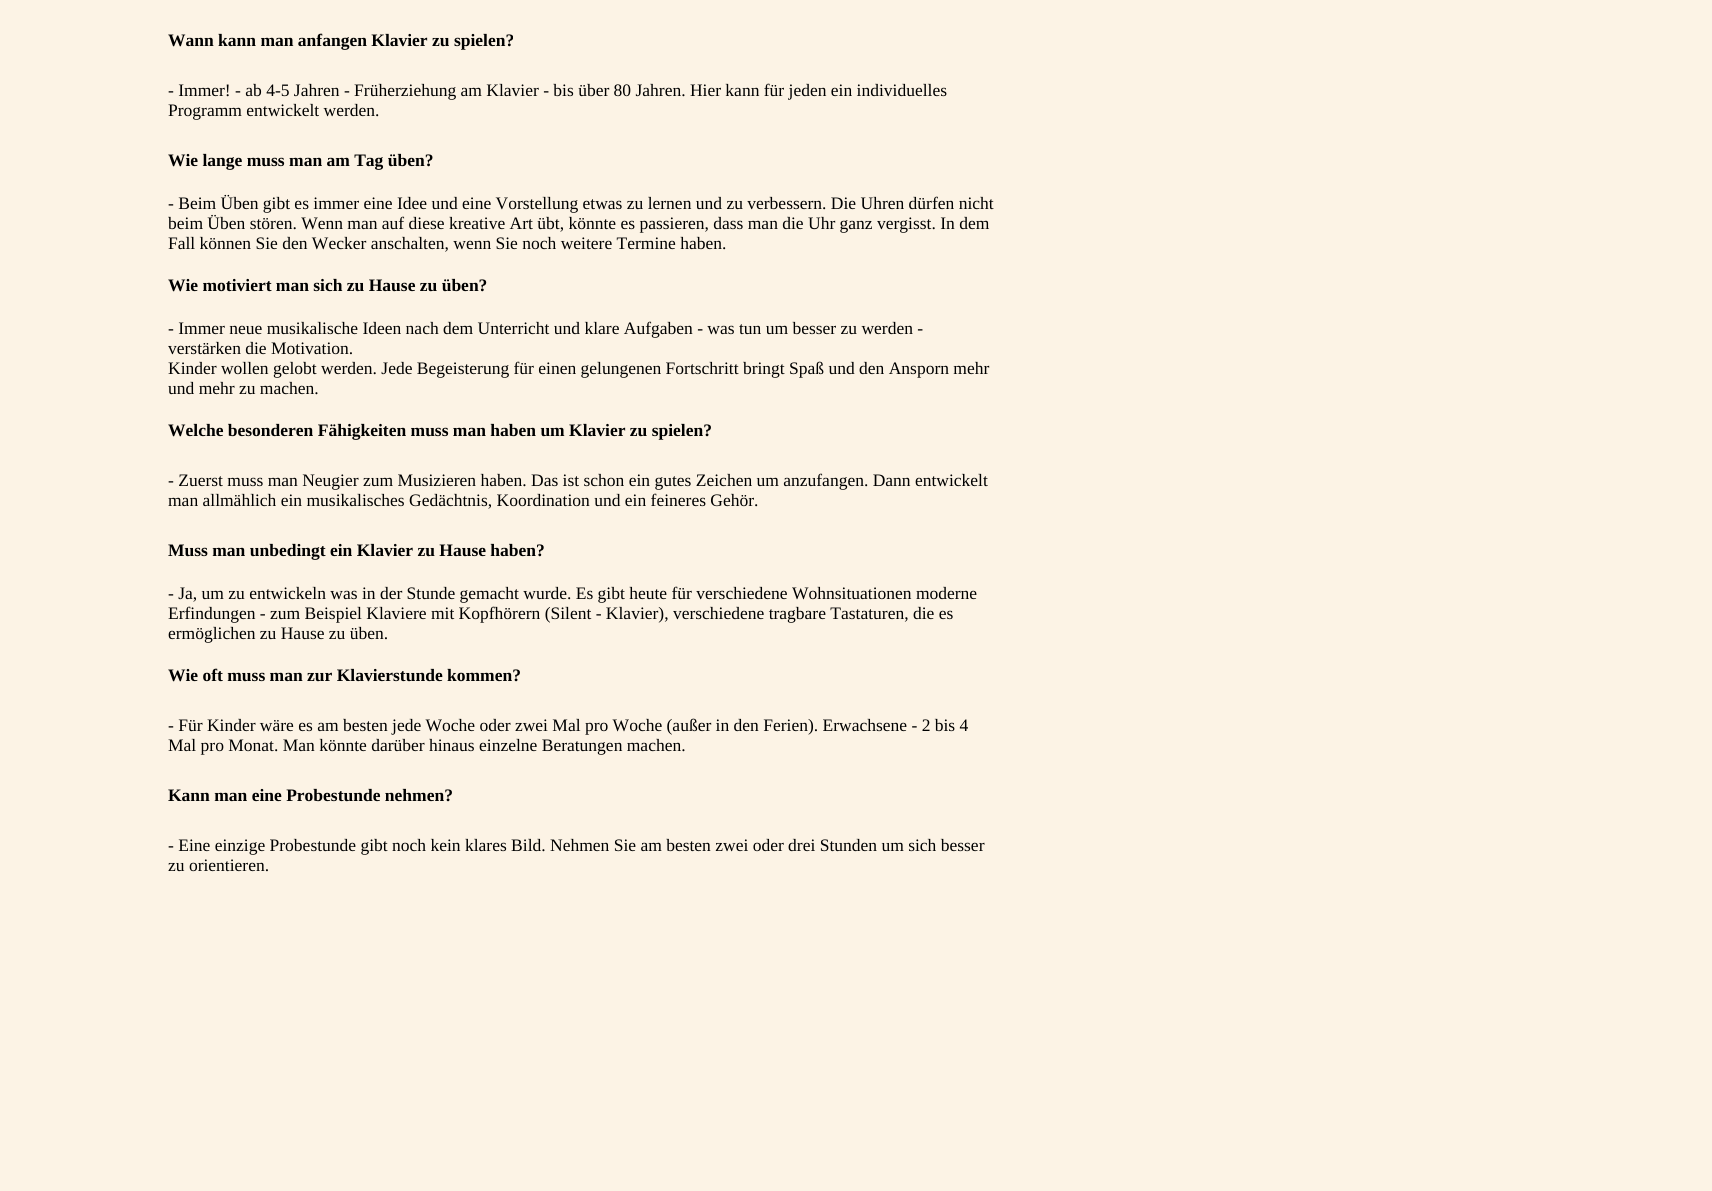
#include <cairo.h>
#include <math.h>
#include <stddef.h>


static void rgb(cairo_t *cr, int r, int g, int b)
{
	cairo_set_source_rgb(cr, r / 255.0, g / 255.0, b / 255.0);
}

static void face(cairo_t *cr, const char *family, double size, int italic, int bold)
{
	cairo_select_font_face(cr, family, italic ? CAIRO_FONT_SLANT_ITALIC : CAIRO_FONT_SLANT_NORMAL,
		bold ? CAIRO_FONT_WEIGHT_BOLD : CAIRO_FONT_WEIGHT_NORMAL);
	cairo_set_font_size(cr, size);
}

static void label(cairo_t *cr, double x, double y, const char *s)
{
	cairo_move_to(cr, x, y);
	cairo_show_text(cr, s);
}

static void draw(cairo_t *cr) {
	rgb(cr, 252, 243, 229);
	cairo_paint(cr);
	face(cr, "Liberation Serif", 17.5, 0, 1);
	rgb(cr, 0, 0, 0);
	label(cr, 168, 46, "Wann kann man anfangen Klavier zu spielen?");
	face(cr, "Liberation Serif", 17.5, 0, 0);
	label(cr, 168, 96, "- Immer! - ab 4-5 Jahren - Früherziehung am Klavier - bis über 80 Jahren. Hier kann für jeden ein individuelles");
	label(cr, 168, 116, "Programm entwickelt werden.");
	face(cr, "Liberation Serif", 17.5, 0, 1);
	label(cr, 168, 166, "Wie lange muss man am Tag üben?");
	face(cr, "Liberation Serif", 17.5, 0, 0);
	label(cr, 168, 209, "- Beim Üben gibt es immer eine Idee und eine Vorstellung etwas zu lernen und zu verbessern. Die Uhren dürfen nicht");
	label(cr, 168, 229, "beim Üben stören. Wenn man auf diese kreative Art übt, könnte es passieren, dass man die Uhr ganz vergisst. In dem");
	label(cr, 168, 249, "Fall können Sie den Wecker anschalten, wenn Sie noch weitere Termine haben.");
	face(cr, "Liberation Serif", 17.5, 0, 1);
	label(cr, 168, 291, "Wie motiviert man sich zu Hause zu üben?");
	face(cr, "Liberation Serif", 17.5, 0, 0);
	label(cr, 168, 334, "- Immer neue musikalische Ideen nach dem Unterricht und klare Aufgaben - was tun um besser zu werden -");
	label(cr, 168, 354, "verstärken die Motivation.");
	label(cr, 168, 374, "Kinder wollen gelobt werden. Jede Begeisterung für einen gelungenen Fortschritt bringt Spaß und den Ansporn mehr");
	label(cr, 168, 394, "und mehr zu machen.");
	face(cr, "Liberation Serif", 17.5, 0, 1);
	label(cr, 168, 436, "Welche besonderen Fähigkeiten muss man haben um Klavier zu spielen?");
	face(cr, "Liberation Serif", 17.5, 0, 0);
	label(cr, 168, 486, "- Zuerst muss man Neugier zum Musizieren haben. Das ist schon ein gutes Zeichen um anzufangen. Dann entwickelt");
	label(cr, 168, 506, "man allmählich ein musikalisches Gedächtnis, Koordination und ein feineres Gehör.");
	face(cr, "Liberation Serif", 17.5, 0, 1);
	label(cr, 168, 556, "Muss man unbedingt ein Klavier zu Hause haben?");
	face(cr, "Liberation Serif", 17.5, 0, 0);
	label(cr, 168, 599, "- Ja, um zu entwickeln was in der Stunde gemacht wurde. Es gibt heute für verschiedene Wohnsituationen moderne");
	label(cr, 168, 619, "Erfindungen - zum Beispiel Klaviere mit Kopfhörern (Silent - Klavier), verschiedene tragbare Tastaturen, die es");
	label(cr, 168, 639, "ermöglichen zu Hause zu üben.");
	face(cr, "Liberation Serif", 17.5, 0, 1);
	label(cr, 168, 681, "Wie oft muss man zur Klavierstunde kommen?");
	face(cr, "Liberation Serif", 17.5, 0, 0);
	label(cr, 168, 731, "- Für Kinder wäre es am besten jede Woche oder zwei Mal pro Woche (außer in den Ferien). Erwachsene - 2 bis 4");
	label(cr, 168, 751, "Mal pro Monat. Man könnte darüber hinaus einzelne Beratungen machen.");
	face(cr, "Liberation Serif", 17.5, 0, 1);
	label(cr, 168, 801, "Kann man eine Probestunde nehmen?");
	face(cr, "Liberation Serif", 17.5, 0, 0);
	label(cr, 168, 851, "- Eine einzige Probestunde gibt noch kein klares Bild. Nehmen Sie am besten zwei oder drei Stunden um sich besser");
	label(cr, 168, 871, "zu orientieren.");
}

int main(void) {
	cairo_surface_t *surface = cairo_image_surface_create(CAIRO_FORMAT_RGB24, 1712, 1191);
	cairo_t *cr = cairo_create(surface);
	cairo_font_options_t *options = cairo_font_options_create();
	cairo_font_options_set_hint_metrics(options, CAIRO_HINT_METRICS_OFF);
	cairo_font_options_set_hint_style(options, CAIRO_HINT_STYLE_NONE);
	cairo_set_font_options(cr, options);
	cairo_set_miter_limit(cr, 4);
	draw(cr);
	cairo_surface_write_to_png(surface, "render.png");
	cairo_font_options_destroy(options);
	cairo_destroy(cr);
	cairo_surface_destroy(surface);
	return 0;
}
